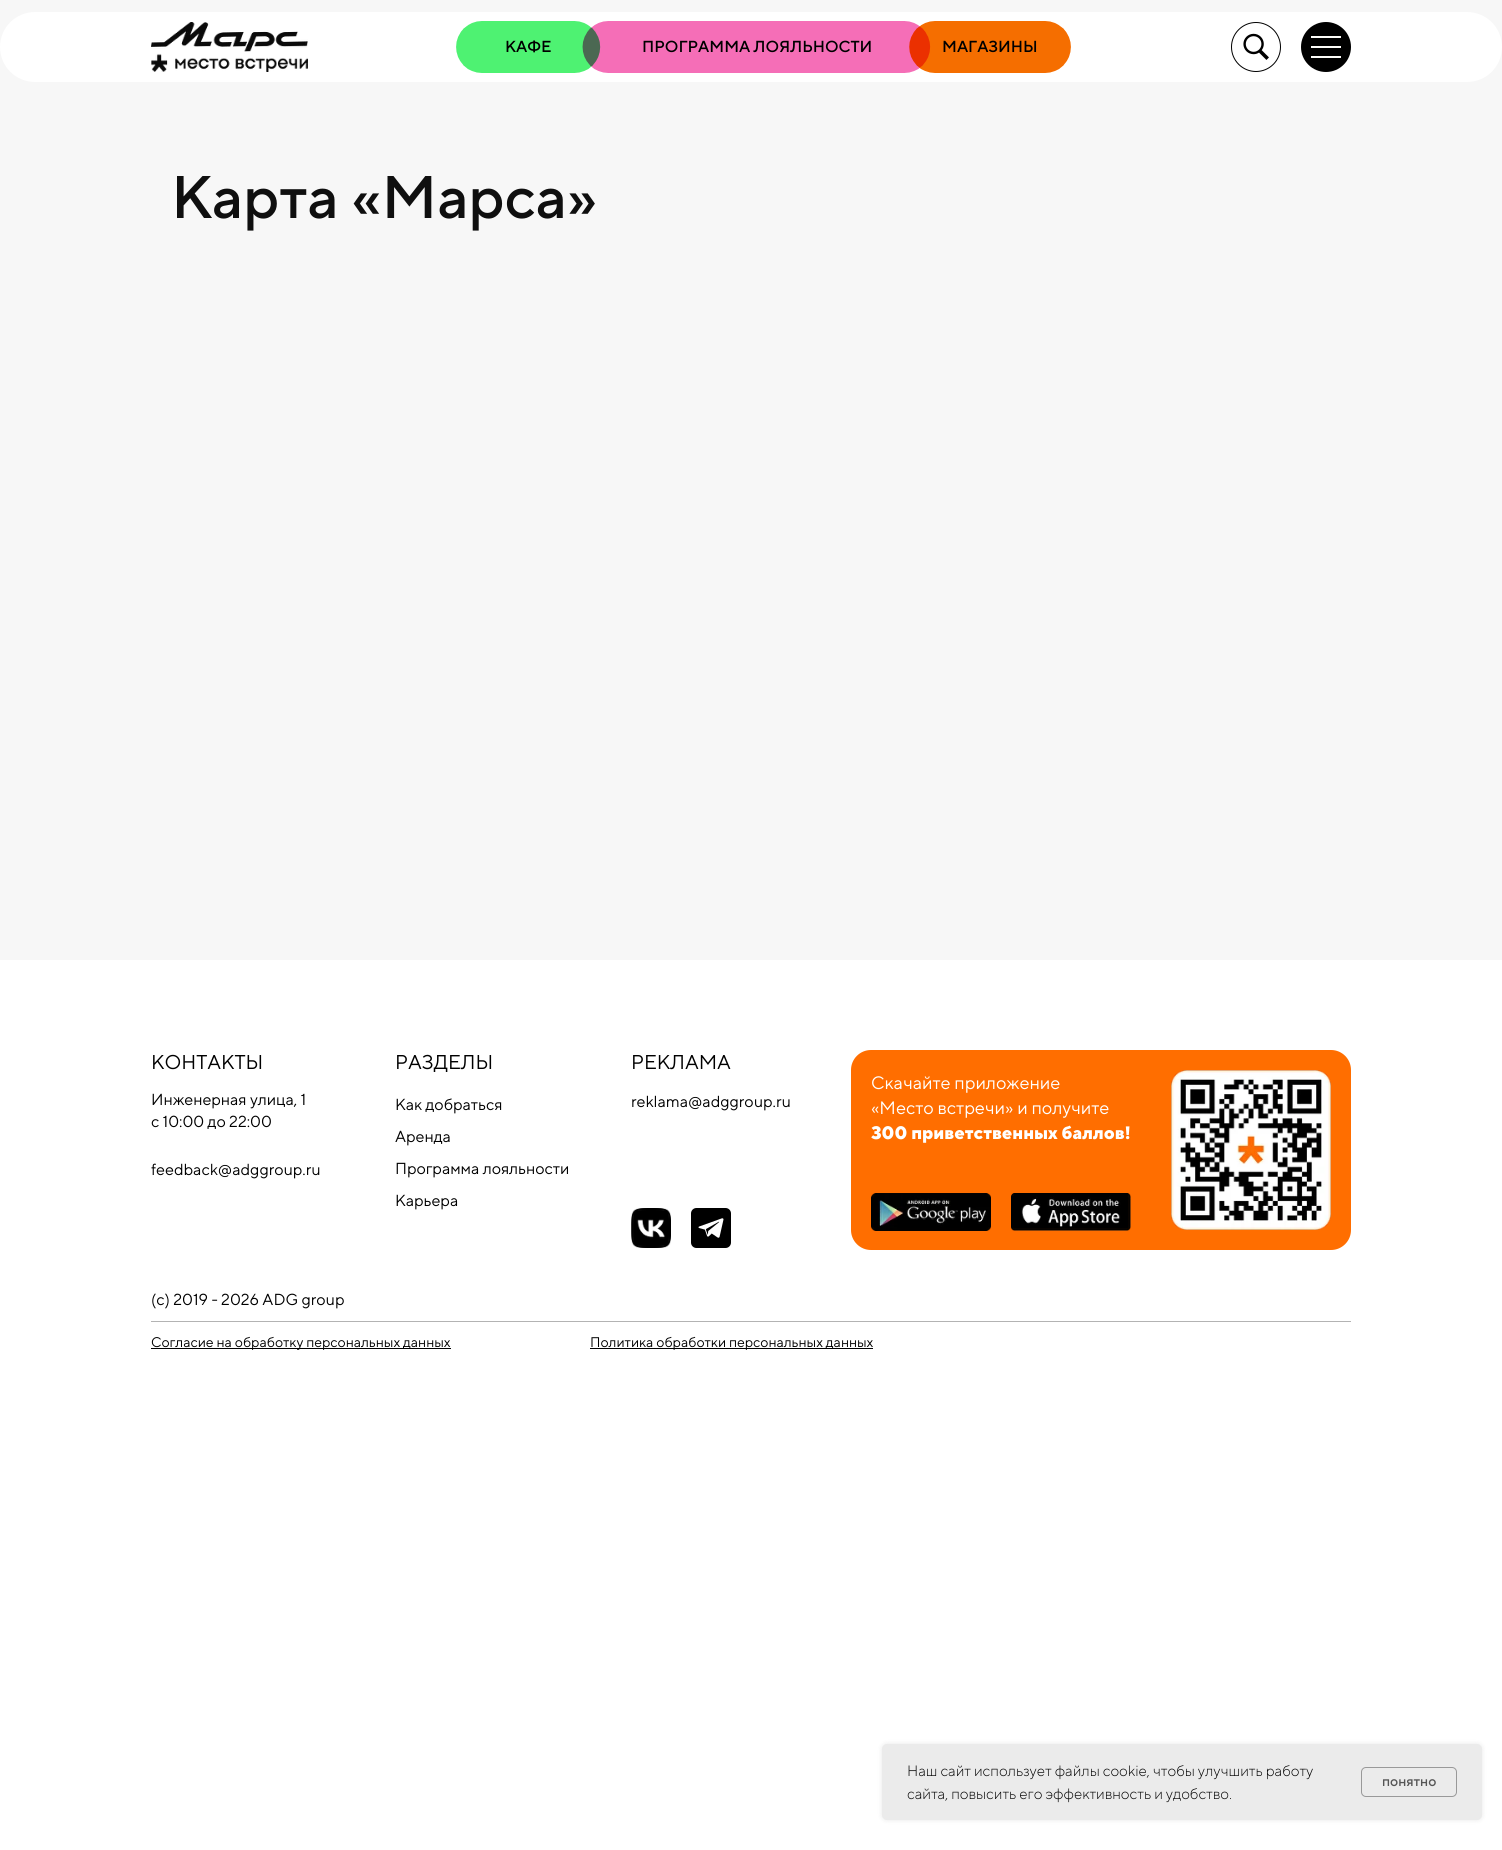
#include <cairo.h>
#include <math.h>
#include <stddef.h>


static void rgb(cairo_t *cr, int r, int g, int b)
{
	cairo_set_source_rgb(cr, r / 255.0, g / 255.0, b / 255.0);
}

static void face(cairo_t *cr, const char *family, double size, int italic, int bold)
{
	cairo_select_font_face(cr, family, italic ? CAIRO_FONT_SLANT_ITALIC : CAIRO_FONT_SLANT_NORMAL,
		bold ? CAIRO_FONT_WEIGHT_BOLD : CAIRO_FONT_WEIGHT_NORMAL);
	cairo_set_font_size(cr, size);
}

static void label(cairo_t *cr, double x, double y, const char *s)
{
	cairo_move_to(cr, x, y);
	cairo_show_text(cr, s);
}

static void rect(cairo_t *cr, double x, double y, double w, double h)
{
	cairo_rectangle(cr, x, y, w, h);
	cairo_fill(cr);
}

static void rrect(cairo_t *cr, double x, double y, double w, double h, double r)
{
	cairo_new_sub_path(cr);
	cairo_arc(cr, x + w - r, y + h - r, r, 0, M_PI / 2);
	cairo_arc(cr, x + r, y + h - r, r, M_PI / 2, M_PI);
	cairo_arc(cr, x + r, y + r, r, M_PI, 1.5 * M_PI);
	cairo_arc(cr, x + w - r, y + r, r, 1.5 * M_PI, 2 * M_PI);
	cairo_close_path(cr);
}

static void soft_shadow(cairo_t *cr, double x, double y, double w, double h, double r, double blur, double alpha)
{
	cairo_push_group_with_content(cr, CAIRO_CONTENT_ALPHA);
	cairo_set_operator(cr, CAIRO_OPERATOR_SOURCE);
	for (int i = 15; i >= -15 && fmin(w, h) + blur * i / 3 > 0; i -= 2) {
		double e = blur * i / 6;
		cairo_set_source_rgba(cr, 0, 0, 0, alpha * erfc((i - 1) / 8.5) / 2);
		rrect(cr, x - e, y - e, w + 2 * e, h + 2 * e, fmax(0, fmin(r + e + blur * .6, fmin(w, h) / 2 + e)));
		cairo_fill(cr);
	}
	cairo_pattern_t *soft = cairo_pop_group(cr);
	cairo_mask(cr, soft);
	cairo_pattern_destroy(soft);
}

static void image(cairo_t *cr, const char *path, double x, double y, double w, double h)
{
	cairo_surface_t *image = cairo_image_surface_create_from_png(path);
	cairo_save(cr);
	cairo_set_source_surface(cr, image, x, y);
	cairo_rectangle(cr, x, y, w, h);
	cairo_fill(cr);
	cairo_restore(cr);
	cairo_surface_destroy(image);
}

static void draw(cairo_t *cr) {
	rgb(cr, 255, 255, 255);
	cairo_paint(cr);
	rgb(cr, 247, 247, 247);
	rect(cr, 0, 0, 1502, 960);
	rgb(cr, 255, 255, 255);
	rrect(cr, 0, 12, 1502, 70, 35);
	cairo_fill(cr);
	image(cr, "image0.png", 151, 22, 157, 50);
	image(cr, "image1.png", 456, 21, 615, 52);
	cairo_arc(cr, 1256, 47, 24.5, 0, 2 * M_PI);
	rgb(cr, 0, 0, 0);
	cairo_set_line_width(cr, 1);
	cairo_stroke(cr);
	cairo_arc(cr, 1326, 47, 25, 0, 2 * M_PI);
	cairo_fill(cr);
	image(cr, "image2.png", 1243, 33, 26, 27);
	rgb(cr, 252, 252, 249);
	rect(cr, 1311, 36, 30, 2);
	face(cr, "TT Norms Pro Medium", 16, 0, 0);
	rgb(cr, 0, 0, 0);
	label(cr, 505, 52, "КАФЕ");
	label(cr, 642, 52, "ПРОГРАММА ЛОЯЛЬНОСТИ");
	label(cr, 942, 52, "МАГАЗИНЫ");
	rgb(cr, 252, 252, 249);
	rect(cr, 1311, 46, 30, 2);
	rect(cr, 1311, 56, 30, 2);
	face(cr, "TT Norms Pro Medium", 60, 0, 0);
	rgb(cr, 15, 15, 15);
	label(cr, 171, 218, "Карта «Марса»");
	face(cr, "TT Norms Pro", 20, 0, 0);
	rgb(cr, 0, 0, 0);
	label(cr, 151, 1069, "КОНТАКТЫ");
	label(cr, 395, 1069, "РАЗДЕЛЫ");
	label(cr, 631, 1069, "РЕКЛАМА");
	rgb(cr, 255, 110, 0);
	rrect(cr, 851, 1050, 500, 200, 20);
	cairo_fill(cr);
	face(cr, "TT Norms Pro", 16, 0, 0);
	rgb(cr, 0, 0, 0);
	label(cr, 151, 1105, "Инженерная улица, 1");
	label(cr, 151, 1127, "с 10:00 до 22:00");
	label(cr, 395, 1110, "Как добраться");
	label(cr, 395, 1142, "Аренда");
	label(cr, 395, 1174, "Программа лояльности");
	label(cr, 395, 1206, "Карьера");
	label(cr, 631, 1107, "reklama@adggroup.ru");
	face(cr, "TT Norms Pro", 18, 0, 0);
	rgb(cr, 255, 255, 255);
	label(cr, 871, 1089, "Скачайте приложение");
	label(cr, 871, 1114, "«Место встречи» и получите");
	face(cr, "TT Norms Pro ExtraBold", 18, 0, 0);
	label(cr, 871, 1139, "300 приветственных баллов!");
	image(cr, "image3.png", 1171, 1070, 160, 160);
	face(cr, "TT Norms Pro", 16, 0, 0);
	rgb(cr, 0, 0, 0);
	label(cr, 151, 1175, "feedback@adggroup.ru");
	image(cr, "image4.png", 631, 1208, 40, 40);
	image(cr, "image5.png", 691, 1208, 40, 40);
	image(cr, "image6.png", 871, 1193, 120, 38);
	image(cr, "image7.png", 1011, 1193, 120, 38);
	label(cr, 151, 1305, "(с) 2019 - 2026 ADG group");
	rgb(cr, 179, 179, 179);
	rect(cr, 151, 1321, 1200, 1);
	rgb(cr, 0, 0, 0);
	rect(cr, 151, 1348, 300, 1);
	face(cr, "TT Norms Pro", 14, 0, 0);
	label(cr, 151, 1347, "Согласие на обработку персональных данных");
	rect(cr, 590, 1348, 283, 1);
	label(cr, 590, 1347, "Политика обработки персональных данных");
	rgb(cr, 0, 0, 0);
	soft_shadow(cr, 882, 1744, 600, 76, 5, 2.5, 0.1);
	rgb(cr, 235, 235, 235);
	rrect(cr, 882, 1744, 600, 76, 5);
	cairo_fill(cr);
	face(cr, "TT Norms Pro Light", 15, 0, 0);
	rgb(cr, 0, 0, 0);
	label(cr, 907, 1776, "Наш сайт использует файлы cookie, чтобы улучшить работу");
	label(cr, 907, 1799, "сайта, повысить его эффективность и удобство.");
	rrect(cr, 1361.5, 1767.5, 95, 29, 4.5);
	rgb(cr, 153, 153, 153);
	cairo_stroke(cr);
	face(cr, "TT Norms Pro Medium", 14, 0, 0);
	rgb(cr, 85, 85, 85);
	label(cr, 1382, 1786, "понятно");
}

int main(void) {
	cairo_surface_t *surface = cairo_image_surface_create(CAIRO_FORMAT_RGB24, 1502, 1850);
	cairo_t *cr = cairo_create(surface);
	cairo_font_options_t *options = cairo_font_options_create();
	cairo_font_options_set_hint_metrics(options, CAIRO_HINT_METRICS_OFF);
	cairo_font_options_set_hint_style(options, CAIRO_HINT_STYLE_NONE);
	cairo_set_font_options(cr, options);
	cairo_set_miter_limit(cr, 4);
	draw(cr);
	cairo_surface_write_to_png(surface, "render.png");
	cairo_font_options_destroy(options);
	cairo_destroy(cr);
	cairo_surface_destroy(surface);
	return 0;
}
